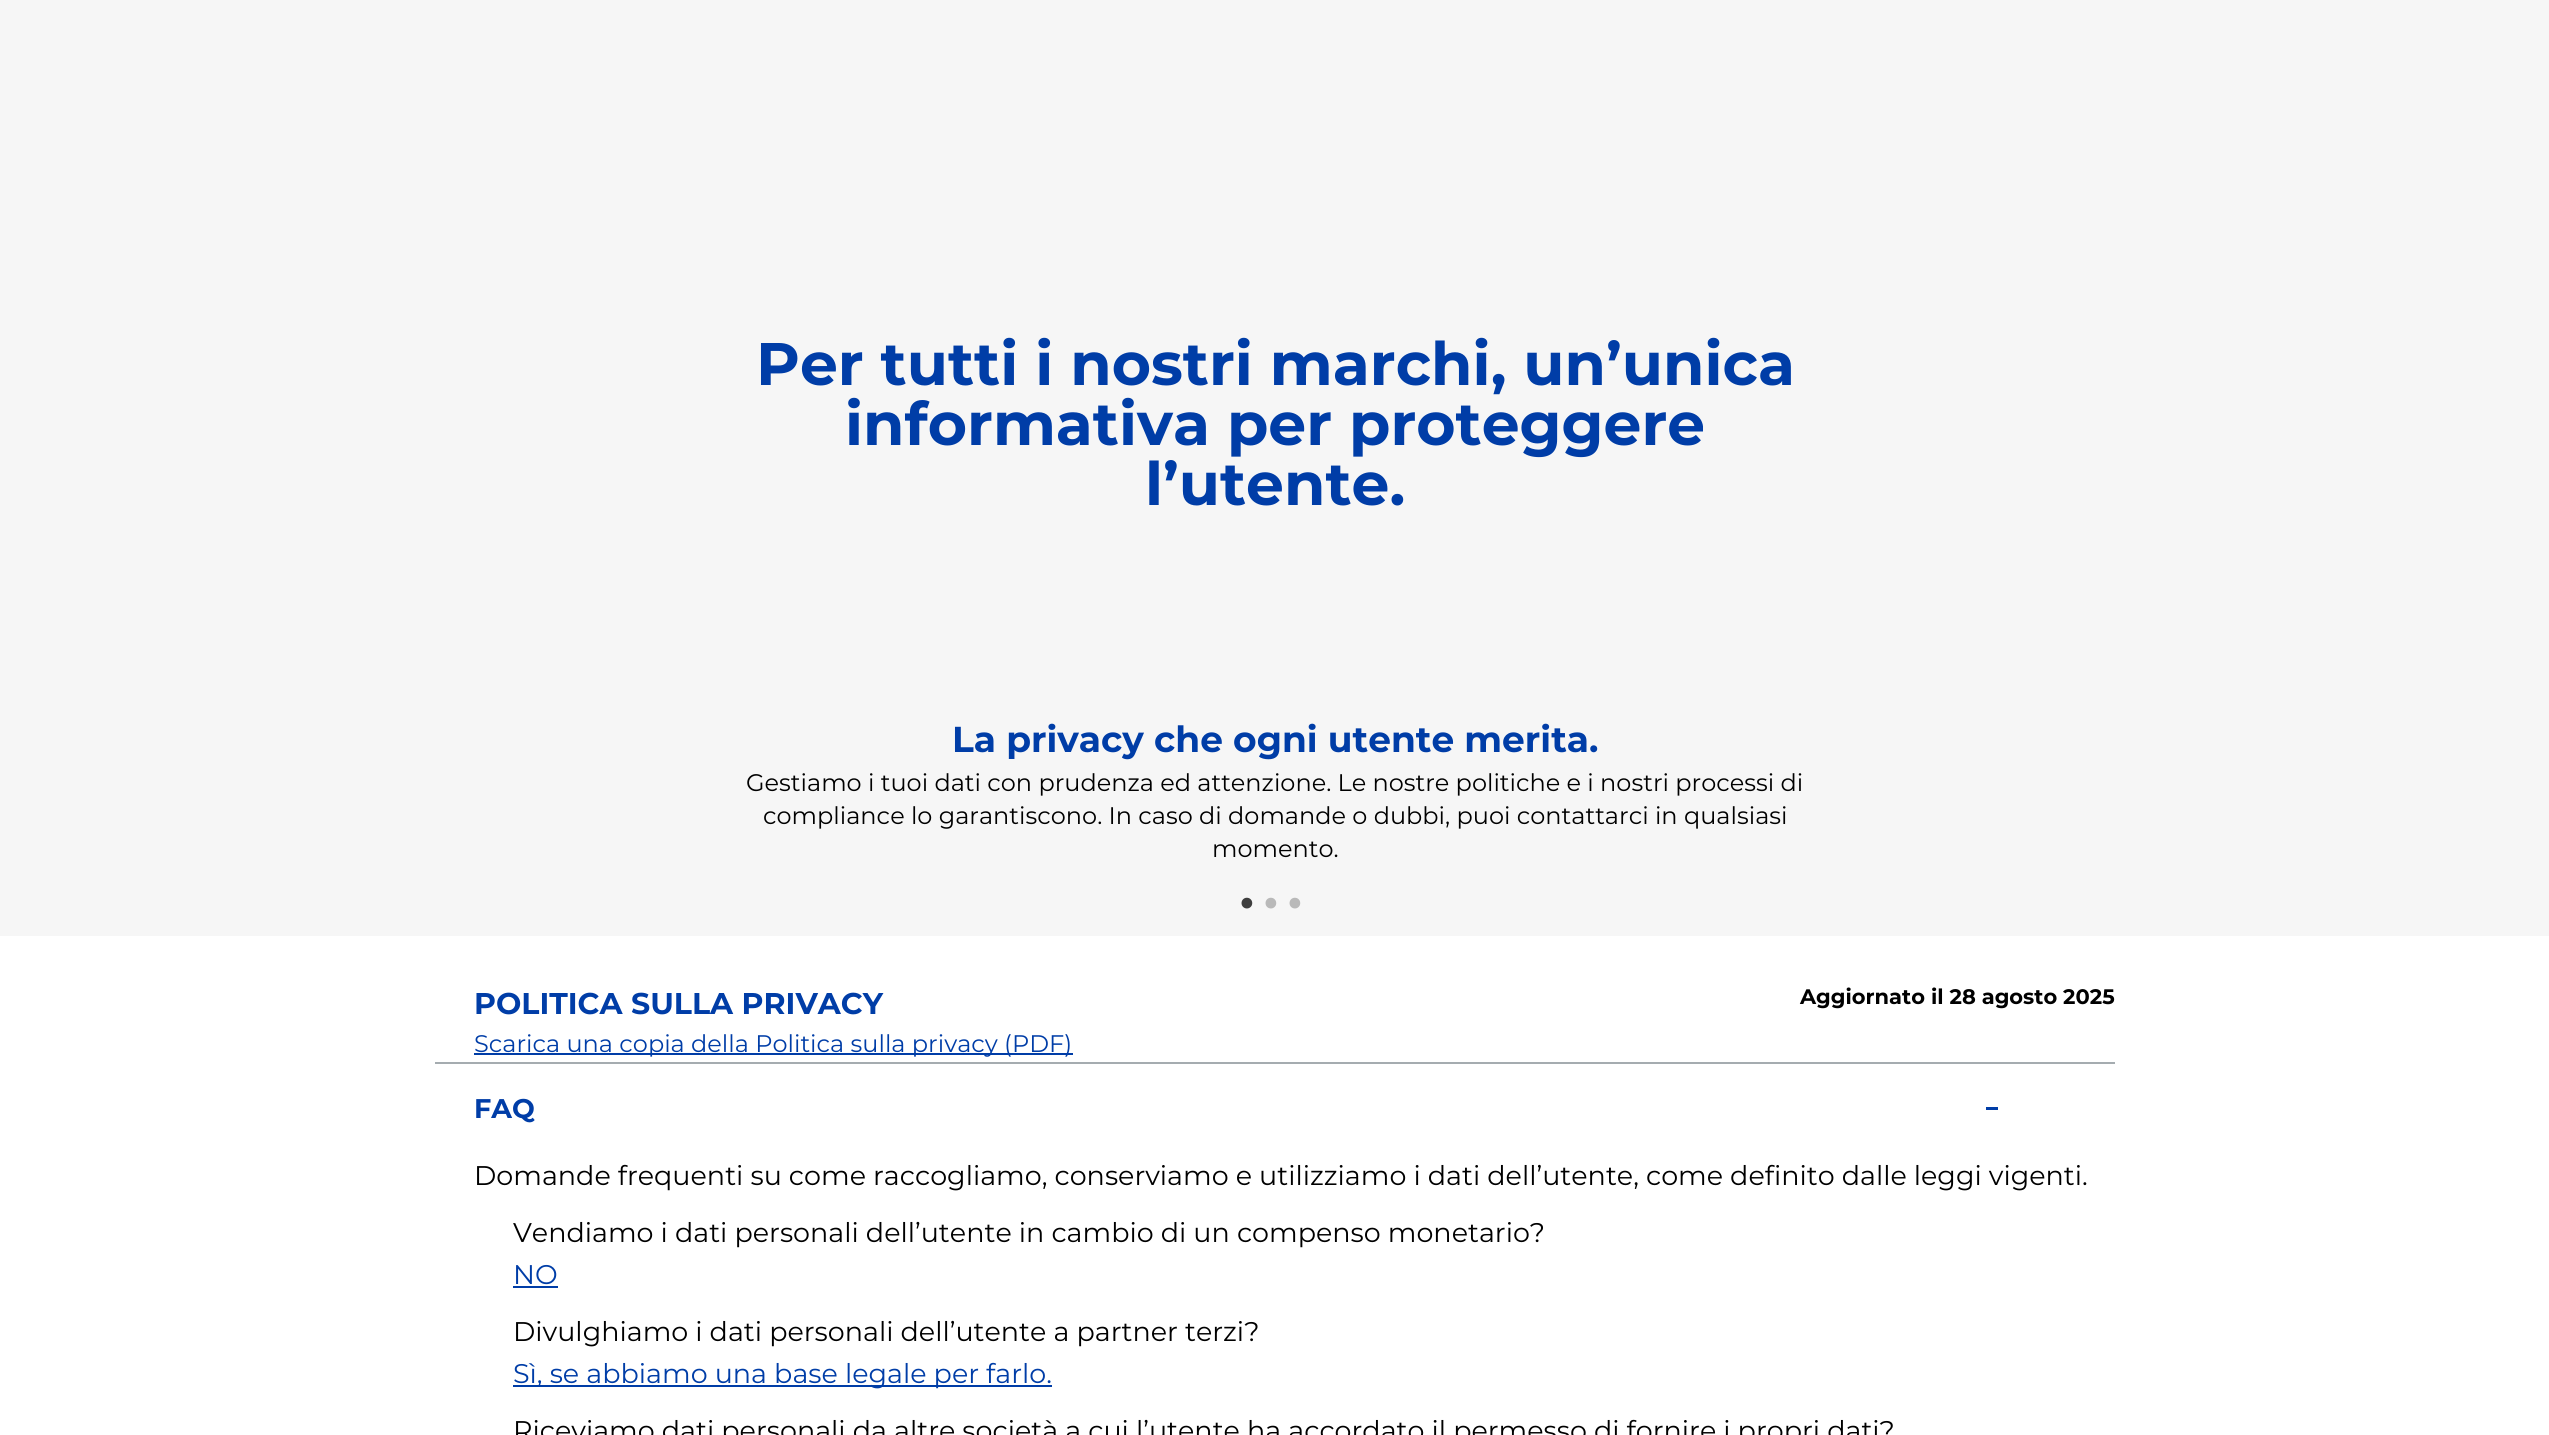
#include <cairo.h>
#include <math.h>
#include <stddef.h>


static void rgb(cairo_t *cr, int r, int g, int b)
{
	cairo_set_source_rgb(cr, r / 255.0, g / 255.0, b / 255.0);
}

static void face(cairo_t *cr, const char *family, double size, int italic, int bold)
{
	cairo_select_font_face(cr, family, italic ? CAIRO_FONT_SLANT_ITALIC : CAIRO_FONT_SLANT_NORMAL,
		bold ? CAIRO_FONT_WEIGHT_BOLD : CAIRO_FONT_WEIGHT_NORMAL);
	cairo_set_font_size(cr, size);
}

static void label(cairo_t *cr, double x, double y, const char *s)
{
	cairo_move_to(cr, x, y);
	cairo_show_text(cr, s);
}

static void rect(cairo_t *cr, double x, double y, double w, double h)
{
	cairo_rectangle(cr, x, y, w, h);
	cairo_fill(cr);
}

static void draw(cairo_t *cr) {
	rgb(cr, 255, 255, 255);
	cairo_paint(cr);
	rgb(cr, 246, 246, 246);
	rect(cr, 0, 0, 2549, 936);
	face(cr, "Montserrat", 60, 0, 1);
	rgb(cr, 0, 61, 167);
	label(cr, 756, 385, "Per tutti i nostri marchi, un’unica");
	label(cr, 845, 445, "informativa per proteggere");
	label(cr, 1145, 505, "l’utente.");
	face(cr, "Montserrat", 36, 0, 1);
	label(cr, 952, 752, "La privacy che ogni utente merita.");
	face(cr, "Montserrat", 24, 0, 0);
	rgb(cr, 0, 0, 0);
	label(cr, 746, 791, "Gestiamo i tuoi dati con prudenza ed attenzione. Le nostre politiche e i nostri processi di");
	label(cr, 763, 824, "compliance lo garantiscono. In caso di domande o dubbi, puoi contattarci in qualsiasi");
	label(cr, 1212, 857, "momento.");
	face(cr, "Liberation Serif", 45, 0, 0);
	rgb(cr, 62, 62, 62);
	label(cr, 1239, 918, "•");
	rgb(cr, 185, 185, 185);
	label(cr, 1263, 918, "•");
	label(cr, 1287, 918, "•");
	face(cr, "Montserrat", 30, 0, 1);
	rgb(cr, 0, 61, 167);
	label(cr, 474, 1014, "POLITICA SULLA PRIVACY");
	face(cr, "Montserrat", 21, 0, 1);
	rgb(cr, 0, 0, 0);
	label(cr, 1800, 1004, "Aggiornato il 28 agosto 2025");
	rgb(cr, 0, 61, 167);
	rect(cr, 474, 1053, 599, 2);
	face(cr, "Montserrat", 24, 0, 0);
	label(cr, 474, 1052, "Scarica una copia della Politica sulla privacy (PDF)");
	rgb(cr, 165, 172, 176);
	rect(cr, 435, 1062, 1680, 2);
	face(cr, "Montserrat", 27, 0, 1);
	rgb(cr, 0, 61, 167);
	label(cr, 474, 1118, "FAQ");
	rect(cr, 1986, 1107, 12, 3);
	face(cr, "Montserrat", 27, 0, 0);
	rgb(cr, 0, 0, 0);
	label(cr, 474, 1185, "Domande frequenti su come raccogliamo, conserviamo e utilizziamo i dati dell’utente, come definito dalle leggi vigenti.");
	label(cr, 513, 1242, "Vendiamo i dati personali dell’utente in cambio di un compenso monetario?");
	rgb(cr, 0, 61, 167);
	label(cr, 513, 1284, "NO");
	rect(cr, 513, 1286, 45, 2);
	rgb(cr, 0, 0, 0);
	label(cr, 513, 1341, "Divulghiamo i dati personali dell’utente a partner terzi?");
	rgb(cr, 0, 61, 167);
	rect(cr, 513, 1385, 539, 2);
	label(cr, 513, 1383, "Sì, se abbiamo una base legale per farlo.");
	rgb(cr, 0, 0, 0);
	label(cr, 513, 1440, "Riceviamo dati personali da altre società a cui l’utente ha accordato il permesso di fornire i propri dati?");
}

int main(void) {
	cairo_surface_t *surface = cairo_image_surface_create(CAIRO_FORMAT_RGB24, 2549, 1435);
	cairo_t *cr = cairo_create(surface);
	cairo_font_options_t *options = cairo_font_options_create();
	cairo_font_options_set_hint_metrics(options, CAIRO_HINT_METRICS_OFF);
	cairo_font_options_set_hint_style(options, CAIRO_HINT_STYLE_NONE);
	cairo_set_font_options(cr, options);
	cairo_set_miter_limit(cr, 4);
	draw(cr);
	cairo_surface_write_to_png(surface, "render.png");
	cairo_font_options_destroy(options);
	cairo_destroy(cr);
	cairo_surface_destroy(surface);
	return 0;
}
